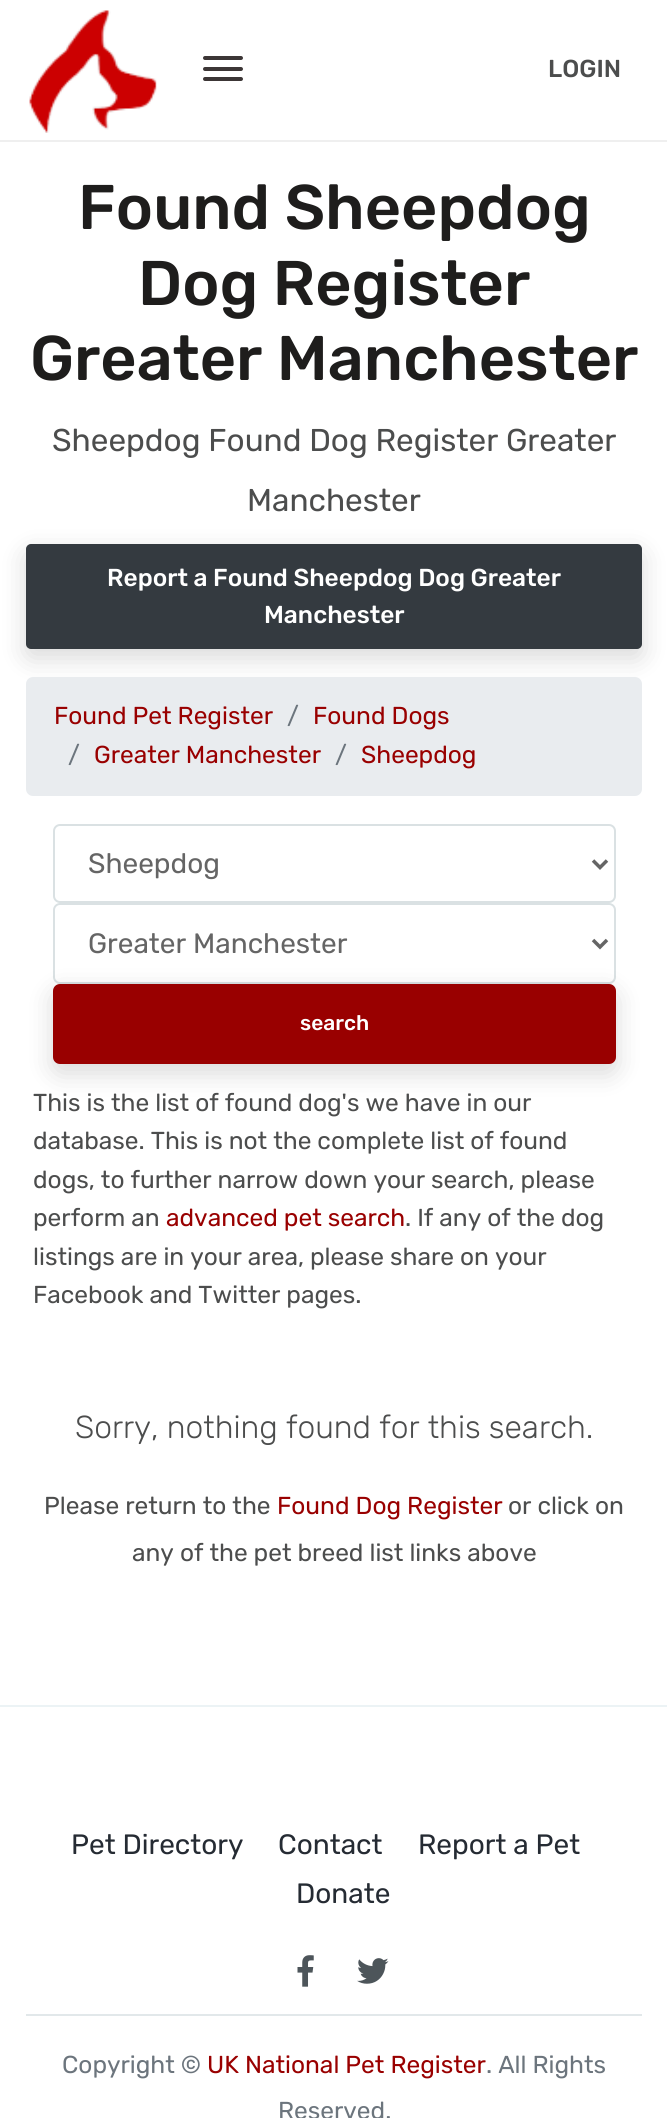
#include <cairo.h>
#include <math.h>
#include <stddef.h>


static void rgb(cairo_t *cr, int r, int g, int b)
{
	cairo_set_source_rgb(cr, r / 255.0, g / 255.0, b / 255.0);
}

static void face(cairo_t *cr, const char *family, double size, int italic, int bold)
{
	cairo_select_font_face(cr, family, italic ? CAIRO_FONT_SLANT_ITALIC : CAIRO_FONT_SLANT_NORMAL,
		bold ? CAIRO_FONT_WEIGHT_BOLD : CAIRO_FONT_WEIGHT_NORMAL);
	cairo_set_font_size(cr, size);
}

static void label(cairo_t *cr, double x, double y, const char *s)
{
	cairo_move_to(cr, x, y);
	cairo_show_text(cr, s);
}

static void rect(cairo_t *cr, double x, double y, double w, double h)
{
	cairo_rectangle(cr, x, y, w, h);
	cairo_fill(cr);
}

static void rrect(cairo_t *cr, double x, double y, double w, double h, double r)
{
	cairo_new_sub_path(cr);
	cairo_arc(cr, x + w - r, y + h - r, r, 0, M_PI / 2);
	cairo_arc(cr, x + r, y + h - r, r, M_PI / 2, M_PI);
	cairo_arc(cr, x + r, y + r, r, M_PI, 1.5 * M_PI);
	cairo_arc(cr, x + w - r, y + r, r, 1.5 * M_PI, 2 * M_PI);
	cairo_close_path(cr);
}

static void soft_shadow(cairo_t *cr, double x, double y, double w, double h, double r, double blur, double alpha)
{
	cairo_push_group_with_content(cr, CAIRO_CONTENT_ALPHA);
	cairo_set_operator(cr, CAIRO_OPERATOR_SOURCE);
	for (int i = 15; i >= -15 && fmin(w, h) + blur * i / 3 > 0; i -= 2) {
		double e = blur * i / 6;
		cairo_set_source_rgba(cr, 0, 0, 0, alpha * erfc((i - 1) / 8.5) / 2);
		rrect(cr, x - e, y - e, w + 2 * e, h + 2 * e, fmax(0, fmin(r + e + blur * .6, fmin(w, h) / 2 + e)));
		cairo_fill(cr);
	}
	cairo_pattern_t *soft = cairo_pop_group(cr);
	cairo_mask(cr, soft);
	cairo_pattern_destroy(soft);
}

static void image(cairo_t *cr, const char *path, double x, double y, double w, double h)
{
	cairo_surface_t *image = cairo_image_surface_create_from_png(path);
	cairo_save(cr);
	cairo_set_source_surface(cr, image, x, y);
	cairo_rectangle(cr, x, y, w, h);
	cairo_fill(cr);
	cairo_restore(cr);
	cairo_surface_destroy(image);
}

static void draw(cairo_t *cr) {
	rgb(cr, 255, 255, 255);
	cairo_paint(cr);
	rgb(cr, 239, 239, 239);
	rect(cr, 0, 140, 667, 2);
	image(cr, "image0.png", 29, 10, 128, 123);
	rgb(cr, 60, 54, 54);
	rrect(cr, 203, 56, 40, 4, 2);
	cairo_fill(cr);
	rrect(cr, 203, 67, 40, 4, 2);
	cairo_fill(cr);
	rrect(cr, 203, 77, 40, 4, 2);
	cairo_fill(cr);
	face(cr, "Rubik Medium", 24.5, 0, 0);
	rgb(cr, 76, 77, 77);
	label(cr, 548, 77, "LOGIN");
	face(cr, "Rubik Medium", 63, 0, 0);
	rgb(cr, 30, 29, 28);
	label(cr, 78, 229, "Found Sheepdog");
	label(cr, 138, 305, "Dog Register");
	label(cr, 30, 380, "Greater Manchester");
	face(cr, "Rubik", 31.5, 0, 0);
	rgb(cr, 76, 77, 77);
	label(cr, 52, 451, "Sheepdog Found Dog Register Greater");
	label(cr, 247, 511, "Manchester");
	rgb(cr, 0, 0, 0);
	soft_shadow(cr, 26, 553, 616, 105, 5, 13, 0.15);
	rgb(cr, 52, 58, 64);
	rrect(cr, 27, 545, 614, 103, 4);
	cairo_fill_preserve(cr);
	cairo_stroke(cr);
	face(cr, "Rubik Medium", 24.5, 0, 0);
	rgb(cr, 255, 255, 255);
	label(cr, 107, 586, "Report a Found Sheepdog Dog Greater");
	label(cr, 264, 623, "Manchester");
	rgb(cr, 233, 236, 239);
	rrect(cr, 26, 677, 616, 119, 7);
	cairo_fill(cr);
	face(cr, "Rubik", 24.5, 0, 0);
	rgb(cr, 153, 0, 0);
	label(cr, 54, 724, "Found Pet Register");
	rgb(cr, 108, 117, 125);
	label(cr, 287, 724, "/");
	rgb(cr, 153, 0, 0);
	label(cr, 313, 724, "Found Dogs");
	rgb(cr, 108, 117, 125);
	label(cr, 68, 763, "/");
	rgb(cr, 153, 0, 0);
	label(cr, 94, 763, "Greater Manchester");
	rgb(cr, 108, 117, 125);
	label(cr, 335, 763, "/");
	rgb(cr, 153, 0, 0);
	label(cr, 361, 763, "Sheepdog");
	rrect(cr, 54, 825, 561, 77, 6);
	rgb(cr, 218, 225, 227);
	cairo_stroke(cr);
	cairo_new_path(cr);
	cairo_move_to(cr, 593, 860.5);
	cairo_line_to(cr, 600, 867.5);
	cairo_line_to(cr, 607, 860.5);
	rgb(cr, 101, 101, 101);
	cairo_set_line_width(cr, 3.5);
	cairo_stroke(cr);
	face(cr, "Rubik", 28, 0, 0);
	label(cr, 88, 873, "Sheepdog");
	rrect(cr, 54, 904, 561, 79, 6);
	rgb(cr, 218, 225, 227);
	cairo_set_line_width(cr, 2);
	cairo_stroke(cr);
	cairo_new_path(cr);
	cairo_move_to(cr, 593, 940);
	cairo_line_to(cr, 600, 947);
	cairo_line_to(cr, 607, 940);
	rgb(cr, 101, 101, 101);
	cairo_set_line_width(cr, 3.5);
	cairo_stroke(cr);
	label(cr, 88, 953, "Greater Manchester");
	rgb(cr, 0, 0, 0);
	soft_shadow(cr, 53, 992, 563, 81, 7, 13, 0.15);
	rgb(cr, 153, 0, 0);
	rrect(cr, 54, 985, 561, 78, 6);
	cairo_fill_preserve(cr);
	cairo_set_line_width(cr, 2);
	cairo_stroke(cr);
	face(cr, "Rubik Medium", 21, 0, 0);
	rgb(cr, 255, 255, 255);
	label(cr, 300, 1030, "search");
	face(cr, "Rubik", 24.5, 0, 0);
	rgb(cr, 76, 77, 77);
	label(cr, 33, 1111, "This is the list of found dog's we have in our");
	label(cr, 33, 1149, "database. This is not the complete list of found");
	label(cr, 33, 1188, "dogs, to further narrow down your search, please");
	label(cr, 33, 1226, "perform an");
	rgb(cr, 153, 0, 0);
	label(cr, 166, 1226, "advanced pet search");
	rgb(cr, 76, 77, 77);
	label(cr, 405, 1226, ". If any of the dog");
	label(cr, 33, 1265, "listings are in your area, please share on your");
	label(cr, 33, 1303, "Facebook and Twitter pages.");
	face(cr, "Rubik Light", 31.8, 0, 0);
	label(cr, 75, 1438, "Sorry, nothing found for this search.");
	face(cr, "Rubik", 24.5, 0, 0);
	label(cr, 44, 1514, "Please return to the");
	rgb(cr, 153, 0, 0);
	label(cr, 277, 1514, "Found Dog Register");
	rgb(cr, 76, 77, 77);
	label(cr, 508, 1514, "or click on");
	label(cr, 132, 1561, "any of the pet breed list links above");
	rgb(cr, 236, 243, 245);
	rect(cr, 0, 1705, 667, 2);
	face(cr, "Rubik", 28, 0, 0);
	rgb(cr, 37, 43, 51);
	label(cr, 71, 1854, "Pet Directory");
	label(cr, 278, 1854, "Contact");
	label(cr, 418, 1854, "Report a Pet");
	label(cr, 296, 1903, "Donate");
	image(cr, "image1.png", 297, 1955, 17, 32);
	image(cr, "image2.png", 357, 1958, 32, 26);
	rgb(cr, 226, 232, 234);
	rect(cr, 26, 2014, 616, 2);
	face(cr, "Rubik", 24.5, 0, 0);
	rgb(cr, 108, 117, 125);
	label(cr, 62, 2073, "Copyright ©");
	rgb(cr, 153, 0, 0);
	label(cr, 207, 2073, "UK National Pet Register");
	rgb(cr, 108, 117, 125);
	label(cr, 486, 2073, ". All Rights");
	label(cr, 278, 2119, "Reserved.");
}

int main(void) {
	cairo_surface_t *surface = cairo_image_surface_create(CAIRO_FORMAT_RGB24, 667, 2118);
	cairo_t *cr = cairo_create(surface);
	cairo_font_options_t *options = cairo_font_options_create();
	cairo_font_options_set_hint_metrics(options, CAIRO_HINT_METRICS_OFF);
	cairo_font_options_set_hint_style(options, CAIRO_HINT_STYLE_NONE);
	cairo_set_font_options(cr, options);
	cairo_set_miter_limit(cr, 4);
	draw(cr);
	cairo_surface_write_to_png(surface, "render.png");
	cairo_font_options_destroy(options);
	cairo_destroy(cr);
	cairo_surface_destroy(surface);
	return 0;
}
